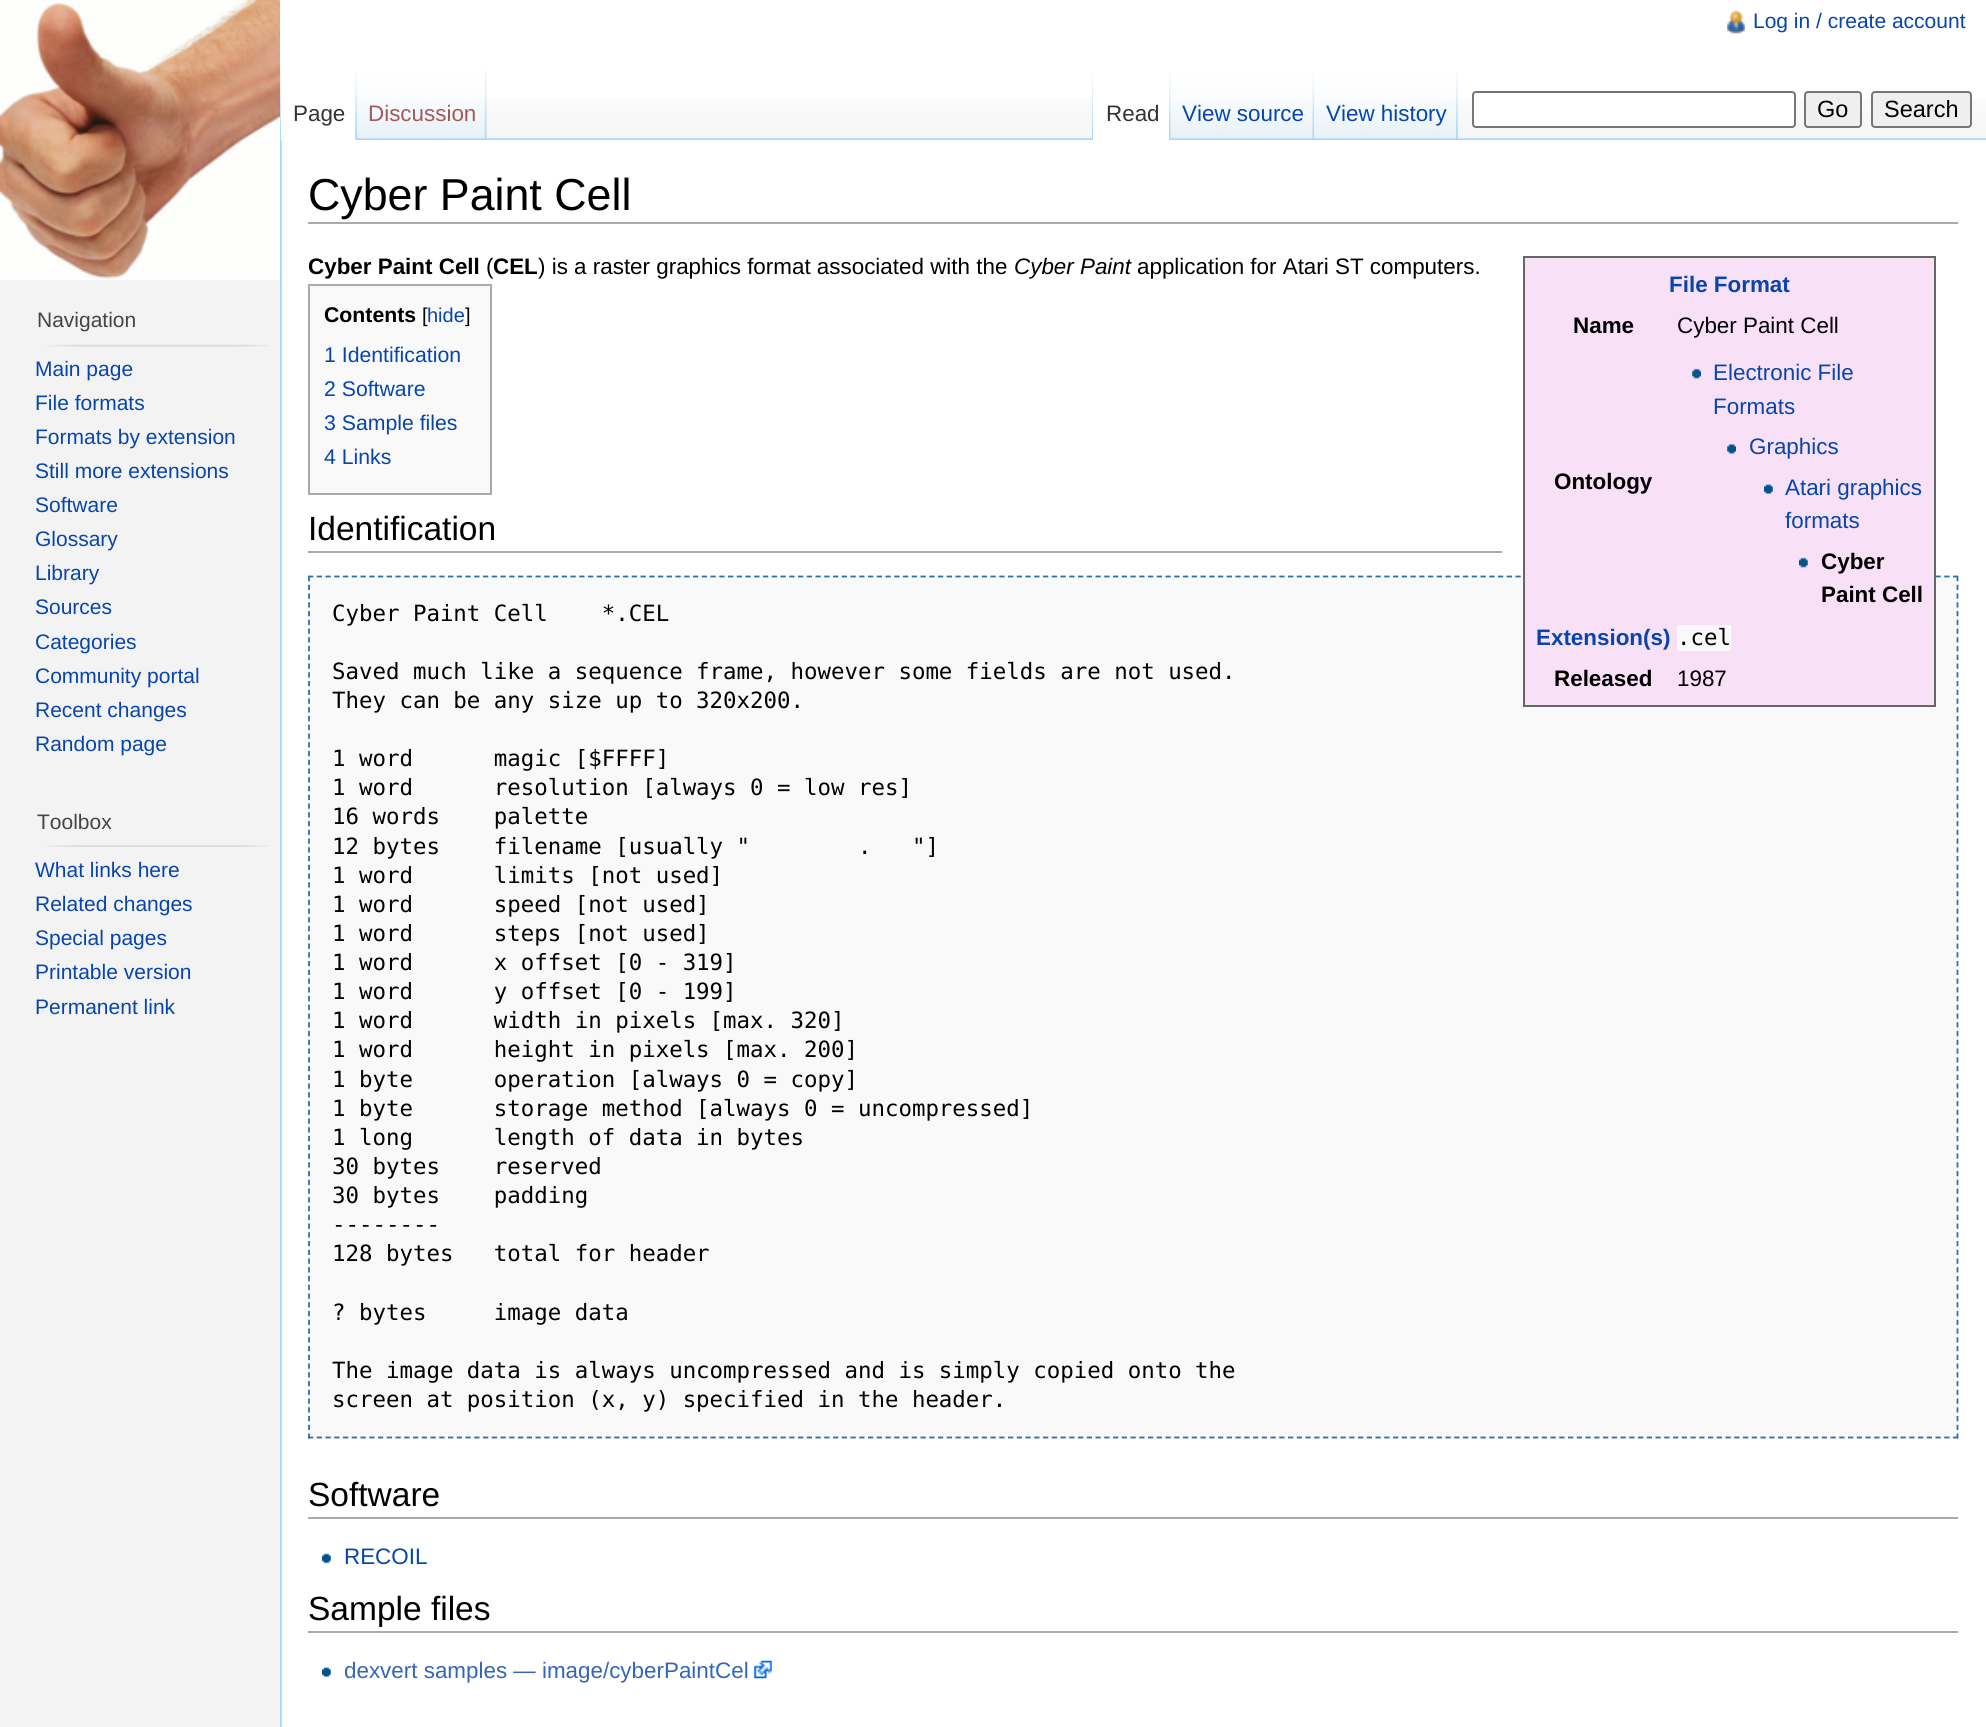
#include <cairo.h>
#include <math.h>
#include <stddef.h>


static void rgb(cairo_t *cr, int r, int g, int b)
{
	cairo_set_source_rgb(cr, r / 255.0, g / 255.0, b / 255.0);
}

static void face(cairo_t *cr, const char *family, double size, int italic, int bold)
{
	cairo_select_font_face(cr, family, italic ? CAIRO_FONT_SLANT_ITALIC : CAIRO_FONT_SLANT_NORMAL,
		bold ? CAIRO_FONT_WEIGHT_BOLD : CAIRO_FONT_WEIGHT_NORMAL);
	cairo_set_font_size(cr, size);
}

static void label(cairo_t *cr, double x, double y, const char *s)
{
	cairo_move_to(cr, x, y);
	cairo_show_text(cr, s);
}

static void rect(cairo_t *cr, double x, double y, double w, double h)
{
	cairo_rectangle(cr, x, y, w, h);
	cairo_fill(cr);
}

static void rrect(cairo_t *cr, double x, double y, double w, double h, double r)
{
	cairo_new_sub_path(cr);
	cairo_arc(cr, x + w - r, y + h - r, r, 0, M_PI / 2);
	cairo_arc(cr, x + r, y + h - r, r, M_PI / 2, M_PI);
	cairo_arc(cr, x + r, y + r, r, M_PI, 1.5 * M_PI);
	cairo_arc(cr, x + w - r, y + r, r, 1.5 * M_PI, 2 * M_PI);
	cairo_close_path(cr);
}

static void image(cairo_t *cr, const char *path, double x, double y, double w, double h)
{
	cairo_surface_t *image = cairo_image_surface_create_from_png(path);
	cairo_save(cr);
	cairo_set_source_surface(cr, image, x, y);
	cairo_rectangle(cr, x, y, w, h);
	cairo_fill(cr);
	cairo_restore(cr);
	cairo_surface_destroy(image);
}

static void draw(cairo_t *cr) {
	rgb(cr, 243, 243, 243);
	cairo_paint(cr);
	rgb(cr, 255, 255, 255);
	rect(cr, 280, 0, 1706, 99);
	image(cr, "image0.png", 487, 99, 1499, 40);
	image(cr, "image1.png", 1727, 10, 18, 24);
	face(cr, "Liberation Sans", 21, 0, 0);
	rgb(cr, 6, 69, 173);
	label(cr, 1753, 28, "Log in / create account");
	image(cr, "image12.png", 280, 138, 1706, 2);
	image(cr, "image2.png", 280, 70, 1, 69);
	rgb(cr, 255, 255, 255);
	rect(cr, 281, 99, 76, 41);
	image(cr, "image3.png", 355, 71, 2, 69);
	face(cr, "Liberation Sans", 22.4, 0, 0);
	rgb(cr, 51, 51, 51);
	label(cr, 293, 121, "Page");
	rgb(cr, 243, 243, 243);
	rect(cr, 486, 70, 1, 70);
	image(cr, "image4.png", 357, 70, 130, 70);
	image(cr, "image5.png", 484, 71, 3, 69);
	rgb(cr, 165, 88, 88);
	label(cr, 368, 121, "Discussion");
	image(cr, "image2.png", 1092, 70, 1, 69);
	image(cr, "image6.png", 1457, 70, 1, 69);
	rgb(cr, 255, 255, 255);
	rect(cr, 1093, 99, 78, 41);
	image(cr, "image7.png", 1169, 71, 2, 69);
	rgb(cr, 51, 51, 51);
	label(cr, 1106, 121, "Read");
	image(cr, "image8.png", 1170, 70, 145, 70);
	image(cr, "image9.png", 1312, 71, 3, 68);
	rgb(cr, 6, 69, 173);
	label(cr, 1182, 121, "View source");
	image(cr, "image10.png", 1314, 70, 144, 70);
	image(cr, "image11.png", 1456, 71, 2, 69);
	label(cr, 1326, 121, "View history");
	rgb(cr, 255, 255, 255);
	rrect(cr, 1473, 92, 322, 35, 3);
	cairo_fill_preserve(cr);
	rgb(cr, 118, 118, 118);
	cairo_stroke(cr);
	rgb(cr, 239, 239, 239);
	rrect(cr, 1805, 92, 56, 35, 3);
	cairo_fill_preserve(cr);
	rgb(cr, 118, 118, 118);
	cairo_stroke(cr);
	face(cr, "Liberation Sans", 23.5, 0, 0);
	rgb(cr, 0, 0, 0);
	label(cr, 1817, 117, "Go");
	rgb(cr, 239, 239, 239);
	rrect(cr, 1872, 92, 99, 35, 3);
	cairo_fill_preserve(cr);
	rgb(cr, 118, 118, 118);
	cairo_stroke(cr);
	rgb(cr, 0, 0, 0);
	label(cr, 1884, 117, "Search");
	image(cr, "image13.png", 0, 0, 280, 280);
	face(cr, "Liberation Sans", 21, 0, 0);
	rgb(cr, 68, 68, 68);
	label(cr, 37, 327, "Navigation");
	image(cr, "image14.png", 46, 344, 224, 3);
	rgb(cr, 6, 69, 173);
	label(cr, 35, 376, "Main page");
	label(cr, 35, 410, "File formats");
	label(cr, 35, 444, "Formats by extension");
	label(cr, 35, 478, "Still more extensions");
	label(cr, 35, 512, "Software");
	label(cr, 35, 546, "Glossary");
	label(cr, 35, 580, "Library");
	label(cr, 35, 614, "Sources");
	label(cr, 35, 649, "Categories");
	label(cr, 35, 683, "Community portal");
	label(cr, 35, 717, "Recent changes");
	label(cr, 35, 751, "Random page");
	rgb(cr, 68, 68, 68);
	label(cr, 37, 829, "Toolbox");
	image(cr, "image15.png", 46, 845, 224, 2);
	rgb(cr, 6, 69, 173);
	label(cr, 35, 877, "What links here");
	label(cr, 35, 911, "Related changes");
	label(cr, 35, 945, "Special pages");
	label(cr, 35, 979, "Printable version");
	label(cr, 35, 1014, "Permanent link");
	rgb(cr, 255, 255, 255);
	rect(cr, 281, 140, 1705, 1587);
	image(cr, "image16.png", 280, 140, 2, 1587);
	rgb(cr, 170, 170, 170);
	rect(cr, 308, 222, 1650, 2);
	face(cr, "Liberation Sans", 44.75, 0, 0);
	rgb(cr, 0, 0, 0);
	label(cr, 308, 210, "Cyber Paint Cell");
	face(cr, "Liberation Sans", 22.4, 0, 1);
	label(cr, 308, 274, "Cyber Paint Cell");
	face(cr, "Liberation Sans", 22.4, 0, 0);
	label(cr, 486, 274, "(");
	face(cr, "Liberation Sans", 22.4, 0, 1);
	label(cr, 493, 274, "CEL");
	face(cr, "Liberation Sans", 22.4, 0, 0);
	label(cr, 538, 274, ") is a raster graphics format associated with the");
	face(cr, "Liberation Sans", 22.4, 1, 0);
	label(cr, 1014, 274, "Cyber Paint");
	face(cr, "Liberation Sans", 22.4, 0, 0);
	label(cr, 1137, 274, "application for Atari ST computers.");
	rgb(cr, 249, 249, 249);
	cairo_rectangle(cr, 309, 285, 182, 209);
	cairo_fill_preserve(cr);
	rgb(cr, 170, 170, 170);
	cairo_stroke(cr);
	face(cr, "Liberation Sans", 21.25, 0, 1);
	rgb(cr, 0, 0, 0);
	label(cr, 324, 322, "Contents");
	face(cr, "Liberation Sans", 20, 0, 0);
	label(cr, 422, 322, "[");
	rgb(cr, 6, 69, 173);
	label(cr, 427, 322, "hide");
	rgb(cr, 0, 0, 0);
	label(cr, 465, 322, "]");
	face(cr, "Liberation Sans", 21.25, 0, 0);
	rgb(cr, 6, 69, 173);
	label(cr, 324, 362, "1 Identification");
	label(cr, 324, 396, "2 Software");
	label(cr, 324, 430, "3 Sample files");
	label(cr, 324, 464, "4 Links");
	rgb(cr, 249, 249, 249);
	rect(cr, 308, 576, 1650, 863);
	cairo_new_path(cr);
	cairo_move_to(cr, 308, 576.5);
	cairo_line_to(cr, 1958, 576.5);
	rgb(cr, 47, 111, 171);
	cairo_set_line_width(cr, 1.8);
	cairo_set_dash(cr, (double[]){5.25, 3.5}, 2, 0);
	cairo_stroke(cr);
	rgb(cr, 248, 224, 247);
	cairo_rectangle(cr, 1524, 257, 411, 449);
	cairo_fill_preserve(cr);
	rgb(cr, 102, 102, 102);
	cairo_set_line_width(cr, 2);
	cairo_set_dash(cr, NULL, 0, 0);
	cairo_stroke(cr);
	face(cr, "Liberation Sans", 22.4, 0, 1);
	rgb(cr, 6, 69, 173);
	label(cr, 1669, 292, "File Format");
	rgb(cr, 0, 0, 0);
	label(cr, 1573, 333, "Name");
	face(cr, "Liberation Sans", 22.4, 0, 0);
	label(cr, 1677, 333, "Cyber Paint Cell");
	face(cr, "Liberation Sans", 22.4, 0, 1);
	label(cr, 1554, 489, "Ontology");
	image(cr, "image17.png", 1692, 368, 9, 11);
	face(cr, "Liberation Sans", 22.4, 0, 0);
	rgb(cr, 6, 69, 173);
	label(cr, 1713, 380, "Electronic File");
	label(cr, 1713, 414, "Formats");
	image(cr, "image18.png", 1727, 444, 9, 10);
	label(cr, 1749, 454, "Graphics");
	image(cr, "image19.png", 1764, 484, 9, 10);
	label(cr, 1785, 495, "Atari graphics");
	label(cr, 1785, 528, "formats");
	image(cr, "image20.png", 1799, 557, 9, 11);
	face(cr, "Liberation Sans", 22.4, 0, 1);
	rgb(cr, 0, 0, 0);
	label(cr, 1821, 569, "Cyber");
	label(cr, 1821, 602, "Paint Cell");
	rgb(cr, 6, 69, 173);
	label(cr, 1536, 645, "Extension(s)");
	rgb(cr, 249, 249, 249);
	rect(cr, 1677, 625, 54, 26);
	face(cr, "DejaVu Sans Mono", 22.4, 0, 0);
	rgb(cr, 0, 0, 0);
	label(cr, 1677, 645, ".cel");
	face(cr, "Liberation Sans", 22.4, 0, 1);
	label(cr, 1554, 686, "Released");
	face(cr, "Liberation Sans", 22.4, 0, 0);
	label(cr, 1677, 686, "1987");
	rgb(cr, 170, 170, 170);
	rect(cr, 308, 551, 1194, 2);
	face(cr, "Liberation Sans", 33.5, 0, 0);
	rgb(cr, 0, 0, 0);
	label(cr, 308, 540, "Identification");
	cairo_new_path(cr);
	cairo_move_to(cr, 1957.5, 576);
	cairo_line_to(cr, 1957.5, 1438.5);
	rgb(cr, 47, 111, 171);
	cairo_set_line_width(cr, 1.8);
	cairo_set_dash(cr, (double[]){5.25, 3.5}, 2, 0);
	cairo_stroke(cr);
	cairo_new_path(cr);
	cairo_move_to(cr, 308, 1437.5);
	cairo_line_to(cr, 1958, 1437.5);
	cairo_stroke(cr);
	cairo_new_path(cr);
	cairo_move_to(cr, 309, 576);
	cairo_line_to(cr, 309, 1438.5);
	cairo_stroke(cr);
	face(cr, "DejaVu Sans Mono", 22.4, 0, 0);
	rgb(cr, 0, 0, 0);
	label(cr, 332, 621, "Cyber Paint Cell    *.CEL");
	label(cr, 332, 679, "Saved much like a sequence frame, however some fields are not used.");
	label(cr, 332, 708, "They can be any size up to 320x200.");
	label(cr, 332, 766, "1 word      magic [$FFFF]");
	label(cr, 332, 795, "1 word      resolution [always 0 = low res]");
	label(cr, 332, 824, "16 words    palette");
	label(cr, 332, 854, "12 bytes    filename [usually \"        .   \"]");
	label(cr, 332, 883, "1 word      limits [not used]");
	label(cr, 332, 912, "1 word      speed [not used]");
	label(cr, 332, 941, "1 word      steps [not used]");
	label(cr, 332, 970, "1 word      x offset [0 - 319]");
	label(cr, 332, 999, "1 word      y offset [0 - 199]");
	label(cr, 332, 1028, "1 word      width in pixels [max. 320]");
	label(cr, 332, 1057, "1 word      height in pixels [max. 200]");
	label(cr, 332, 1087, "1 byte      operation [always 0 = copy]");
	label(cr, 332, 1116, "1 byte      storage method [always 0 = uncompressed]");
	label(cr, 332, 1145, "1 long      length of data in bytes");
	label(cr, 332, 1174, "30 bytes    reserved");
	label(cr, 332, 1203, "30 bytes    padding");
	label(cr, 332, 1232, "--------");
	label(cr, 332, 1261, "128 bytes   total for header");
	label(cr, 332, 1320, "? bytes     image data");
	label(cr, 332, 1378, "The image data is always uncompressed and is simply copied onto the");
	label(cr, 332, 1407, "screen at position (x, y) specified in the header.");
	rgb(cr, 170, 170, 170);
	rect(cr, 308, 1517, 1650, 2);
	face(cr, "Liberation Sans", 33.5, 0, 0);
	rgb(cr, 0, 0, 0);
	label(cr, 308, 1506, "Software");
	image(cr, "image21.png", 322, 1553, 9, 11);
	face(cr, "Liberation Sans", 22.4, 0, 0);
	rgb(cr, 6, 69, 173);
	label(cr, 344, 1564, "RECOIL");
	rgb(cr, 170, 170, 170);
	rect(cr, 308, 1631, 1650, 2);
	face(cr, "Liberation Sans", 33.5, 0, 0);
	rgb(cr, 0, 0, 0);
	label(cr, 308, 1620, "Sample files");
	image(cr, "image22.png", 322, 1667, 9, 10);
	face(cr, "Liberation Sans", 22.4, 0, 0);
	rgb(cr, 51, 102, 187);
	label(cr, 344, 1678, "dexvert samples — image/cyberPaintCel");
	image(cr, "image23.png", 754, 1660, 18, 19);
}

int main(void) {
	cairo_surface_t *surface = cairo_image_surface_create(CAIRO_FORMAT_RGB24, 1986, 1727);
	cairo_t *cr = cairo_create(surface);
	cairo_font_options_t *options = cairo_font_options_create();
	cairo_font_options_set_hint_metrics(options, CAIRO_HINT_METRICS_OFF);
	cairo_font_options_set_hint_style(options, CAIRO_HINT_STYLE_NONE);
	cairo_set_font_options(cr, options);
	cairo_set_miter_limit(cr, 4);
	draw(cr);
	cairo_surface_write_to_png(surface, "render.png");
	cairo_font_options_destroy(options);
	cairo_destroy(cr);
	cairo_surface_destroy(surface);
	return 0;
}
